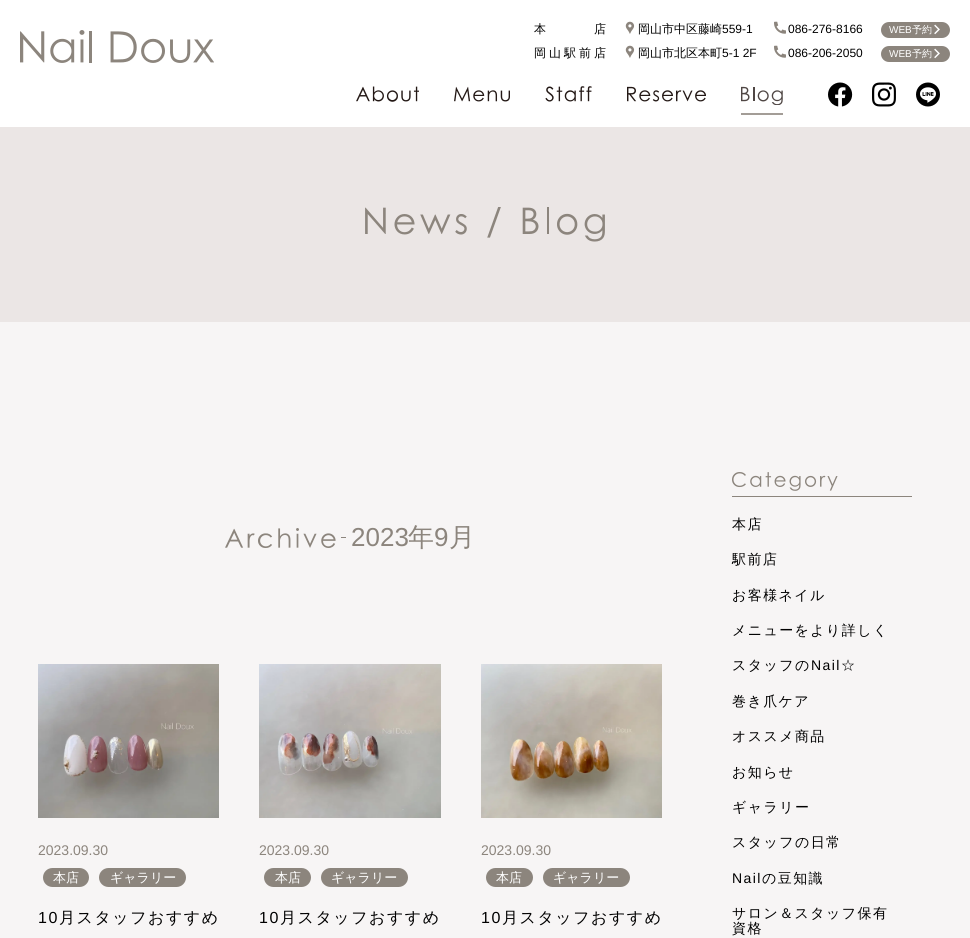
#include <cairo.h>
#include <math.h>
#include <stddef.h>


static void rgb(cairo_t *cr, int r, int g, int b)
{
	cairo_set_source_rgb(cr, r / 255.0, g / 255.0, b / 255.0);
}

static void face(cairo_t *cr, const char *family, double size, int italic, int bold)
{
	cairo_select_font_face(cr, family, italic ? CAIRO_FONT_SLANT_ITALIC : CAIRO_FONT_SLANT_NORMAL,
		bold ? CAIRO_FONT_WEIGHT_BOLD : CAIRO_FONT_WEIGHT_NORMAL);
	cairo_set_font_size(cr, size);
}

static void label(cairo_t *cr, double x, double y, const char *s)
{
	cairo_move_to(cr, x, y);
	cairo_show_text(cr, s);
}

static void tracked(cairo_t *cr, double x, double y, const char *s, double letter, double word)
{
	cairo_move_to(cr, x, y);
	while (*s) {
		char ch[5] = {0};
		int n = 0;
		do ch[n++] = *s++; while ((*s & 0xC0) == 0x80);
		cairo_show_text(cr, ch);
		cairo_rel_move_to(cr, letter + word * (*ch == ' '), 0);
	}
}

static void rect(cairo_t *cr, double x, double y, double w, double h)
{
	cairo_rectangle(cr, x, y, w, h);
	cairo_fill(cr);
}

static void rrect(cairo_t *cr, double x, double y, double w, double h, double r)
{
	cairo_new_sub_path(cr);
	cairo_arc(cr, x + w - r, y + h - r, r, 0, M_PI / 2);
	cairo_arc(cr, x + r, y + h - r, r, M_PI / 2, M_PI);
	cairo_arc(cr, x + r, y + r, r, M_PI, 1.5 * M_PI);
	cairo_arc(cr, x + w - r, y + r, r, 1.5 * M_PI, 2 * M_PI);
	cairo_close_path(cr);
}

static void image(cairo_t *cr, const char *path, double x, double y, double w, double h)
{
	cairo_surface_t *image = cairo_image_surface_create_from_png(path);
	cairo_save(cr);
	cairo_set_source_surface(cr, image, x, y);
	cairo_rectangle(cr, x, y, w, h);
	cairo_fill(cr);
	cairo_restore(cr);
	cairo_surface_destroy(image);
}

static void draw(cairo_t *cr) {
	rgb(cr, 247, 245, 245);
	cairo_paint(cr);
	rgb(cr, 255, 255, 255);
	rect(cr, 0, 0, 970, 127);
	image(cr, "image0.png", 20, 30, 194, 33);
	face(cr, "WenQuanYi Zen Hei Medium", 12, 0, 0);
	rgb(cr, 0, 0, 0);
	label(cr, 534, 33, "本");
	label(cr, 594, 33, "店");
	image(cr, "image1.png", 625, 21, 10, 13);
	label(cr, 638, 33, "岡山市中区藤崎");
	face(cr, "Liberation Sans", 12, 0, 0);
	label(cr, 722, 33, "559-1");
	image(cr, "image2.png", 774, 21, 12, 13);
	label(cr, 788, 33, "086-276-8166");
	rgb(cr, 140, 133, 125);
	rrect(cr, 881, 22, 69, 16, 8);
	cairo_fill(cr);
	face(cr, "Liberation Sans", 10, 0, 0);
	rgb(cr, 255, 255, 255);
	label(cr, 889, 33, "WEB");
	face(cr, "WenQuanYi Zen Hei Medium", 10, 0, 0);
	label(cr, 912, 33, "予約");
	image(cr, "image3.png", 934, 24, 6, 11);
	face(cr, "WenQuanYi Zen Hei Medium", 12, 0, 0);
	rgb(cr, 0, 0, 0);
	label(cr, 534, 57, "岡");
	label(cr, 549, 57, "山");
	label(cr, 564, 57, "駅");
	label(cr, 579, 57, "前");
	label(cr, 594, 57, "店");
	image(cr, "image1.png", 625, 45, 10, 13);
	label(cr, 638, 57, "岡山市北区本町");
	face(cr, "Liberation Sans", 12, 0, 0);
	label(cr, 722, 57, "5-1 2F");
	image(cr, "image2.png", 774, 45, 12, 13);
	label(cr, 788, 57, "086-206-2050");
	rgb(cr, 140, 133, 125);
	rrect(cr, 881, 46, 69, 16, 8);
	cairo_fill(cr);
	face(cr, "Liberation Sans", 10, 0, 0);
	rgb(cr, 255, 255, 255);
	label(cr, 889, 57, "WEB");
	face(cr, "WenQuanYi Zen Hei Medium", 10, 0, 0);
	label(cr, 912, 57, "予約");
	image(cr, "image3.png", 934, 48, 6, 11);
	image(cr, "image4.png", 356, 86, 63, 16);
	image(cr, "image5.png", 454, 86, 56, 16);
	image(cr, "image6.png", 545, 86, 47, 16);
	image(cr, "image7.png", 627, 86, 79, 16);
	image(cr, "image8.png", 741, 86, 42, 19);
	rgb(cr, 163, 157, 151);
	rect(cr, 741, 113, 42, 2);
	image(cr, "image9.png", 828, 82, 25, 25);
	image(cr, "image10.png", 872, 82, 24, 25);
	image(cr, "image11.png", 916, 82, 24, 25);
	rgb(cr, 235, 230, 229);
	rect(cr, 0, 127, 970, 195);
	image(cr, "image12.png", 365, 207, 240, 35);
	image(cr, "image13.png", 225, 528, 111, 20);
	rgb(cr, 140, 133, 125);
	rect(cr, 341, 537, 5, 1);
	face(cr, "Liberation Sans", 26, 0, 0);
	label(cr, 351, 546, "2023");
	face(cr, "WenQuanYi Zen Hei Medium", 26, 0, 0);
	label(cr, 408, 546, "年");
	face(cr, "Liberation Sans", 26, 0, 0);
	label(cr, 434, 546, "9");
	face(cr, "WenQuanYi Zen Hei Medium", 26, 0, 0);
	label(cr, 449, 546, "月");
	image(cr, "image14.png", 38, 664, 181, 154);
	face(cr, "Liberation Sans", 14, 0, 0);
	label(cr, 38, 855, "2023.09.30");
	rrect(cr, 43, 868, 46, 19, 9.5);
	cairo_fill(cr);
	face(cr, "WenQuanYi Zen Hei Medium", 13, 0, 0);
	rgb(cr, 255, 255, 255);
	label(cr, 53, 882, "本店");
	rgb(cr, 140, 133, 125);
	rrect(cr, 99, 868, 87, 19, 9.5);
	cairo_fill(cr);
	rgb(cr, 255, 255, 255);
	label(cr, 110, 882, "ギャラリー");
	face(cr, "Liberation Sans", 16, 0, 0);
	rgb(cr, 0, 0, 0);
	tracked(cr, 38, 923, "10", 1.5, 0);
	face(cr, "WenQuanYi Zen Hei Medium", 16, 0, 0);
	tracked(cr, 59, 923, "月スタッフおすすめ", 1.5, 0);
	image(cr, "image15.png", 259, 664, 182, 154);
	face(cr, "Liberation Sans", 14, 0, 0);
	rgb(cr, 140, 133, 125);
	label(cr, 259, 855, "2023.09.30");
	rrect(cr, 264, 868, 47, 19, 9.5);
	cairo_fill(cr);
	face(cr, "WenQuanYi Zen Hei Medium", 13, 0, 0);
	rgb(cr, 255, 255, 255);
	label(cr, 275, 882, "本店");
	rgb(cr, 140, 133, 125);
	rrect(cr, 321, 868, 87, 19, 9.5);
	cairo_fill(cr);
	rgb(cr, 255, 255, 255);
	label(cr, 331, 882, "ギャラリー");
	face(cr, "Liberation Sans", 16, 0, 0);
	rgb(cr, 0, 0, 0);
	tracked(cr, 259, 923, "10", 1.5, 0);
	face(cr, "WenQuanYi Zen Hei Medium", 16, 0, 0);
	tracked(cr, 280, 923, "月スタッフおすすめ", 1.5, 0);
	image(cr, "image16.png", 481, 664, 181, 154);
	face(cr, "Liberation Sans", 14, 0, 0);
	rgb(cr, 140, 133, 125);
	label(cr, 481, 855, "2023.09.30");
	rrect(cr, 486, 868, 47, 19, 9.5);
	cairo_fill(cr);
	face(cr, "WenQuanYi Zen Hei Medium", 13, 0, 0);
	rgb(cr, 255, 255, 255);
	label(cr, 496, 882, "本店");
	rgb(cr, 140, 133, 125);
	rrect(cr, 543, 868, 87, 19, 9.5);
	cairo_fill(cr);
	rgb(cr, 255, 255, 255);
	label(cr, 553, 882, "ギャラリー");
	face(cr, "Liberation Sans", 16, 0, 0);
	rgb(cr, 0, 0, 0);
	tracked(cr, 481, 923, "10", 1.5, 0);
	face(cr, "WenQuanYi Zen Hei Medium", 16, 0, 0);
	tracked(cr, 502, 923, "月スタッフおすすめ", 1.5, 0);
	rgb(cr, 140, 133, 125);
	rect(cr, 732, 496, 180, 1);
	image(cr, "image17.png", 732, 472, 106, 19);
	face(cr, "WenQuanYi Zen Hei Medium", 14, 0, 0);
	rgb(cr, 0, 0, 0);
	tracked(cr, 732, 529, "本店", 1.4, 0);
	tracked(cr, 732, 564, "駅前店", 1.4, 0);
	tracked(cr, 732, 600, "お客様ネイル", 1.4, 0);
	tracked(cr, 732, 635, "メニューをより詳しく", 1.4, 0);
	tracked(cr, 732, 670, "スタッフの", 1.4, 0);
	face(cr, "Liberation Sans", 14, 0, 0);
	tracked(cr, 811, 670, "Nail", 1.4, 0);
	face(cr, "WenQuanYi Zen Hei Medium", 14, 0, 0);
	tracked(cr, 841, 670, "☆", 1.4, 0);
	tracked(cr, 732, 706, "巻き爪ケア", 1.4, 0);
	tracked(cr, 732, 741, "オススメ商品", 1.4, 0);
	tracked(cr, 732, 777, "お知らせ", 1.4, 0);
	tracked(cr, 732, 812, "ギャラリー", 1.4, 0);
	tracked(cr, 732, 847, "スタッフの日常", 1.4, 0);
	face(cr, "Liberation Sans", 14, 0, 0);
	tracked(cr, 732, 883, "Nail", 1.4, 0);
	face(cr, "WenQuanYi Zen Hei Medium", 14, 0, 0);
	tracked(cr, 762, 883, "の豆知識", 1.4, 0);
	tracked(cr, 732, 918, "サロン＆スタッフ保有", 1.4, 0);
	tracked(cr, 732, 933, "資格", 1.4, 0);
}

int main(void) {
	cairo_surface_t *surface = cairo_image_surface_create(CAIRO_FORMAT_RGB24, 970, 938);
	cairo_t *cr = cairo_create(surface);
	cairo_font_options_t *options = cairo_font_options_create();
	cairo_font_options_set_hint_metrics(options, CAIRO_HINT_METRICS_OFF);
	cairo_font_options_set_hint_style(options, CAIRO_HINT_STYLE_NONE);
	cairo_set_font_options(cr, options);
	cairo_set_miter_limit(cr, 4);
	draw(cr);
	cairo_surface_write_to_png(surface, "render.png");
	cairo_font_options_destroy(options);
	cairo_destroy(cr);
	cairo_surface_destroy(surface);
	return 0;
}
